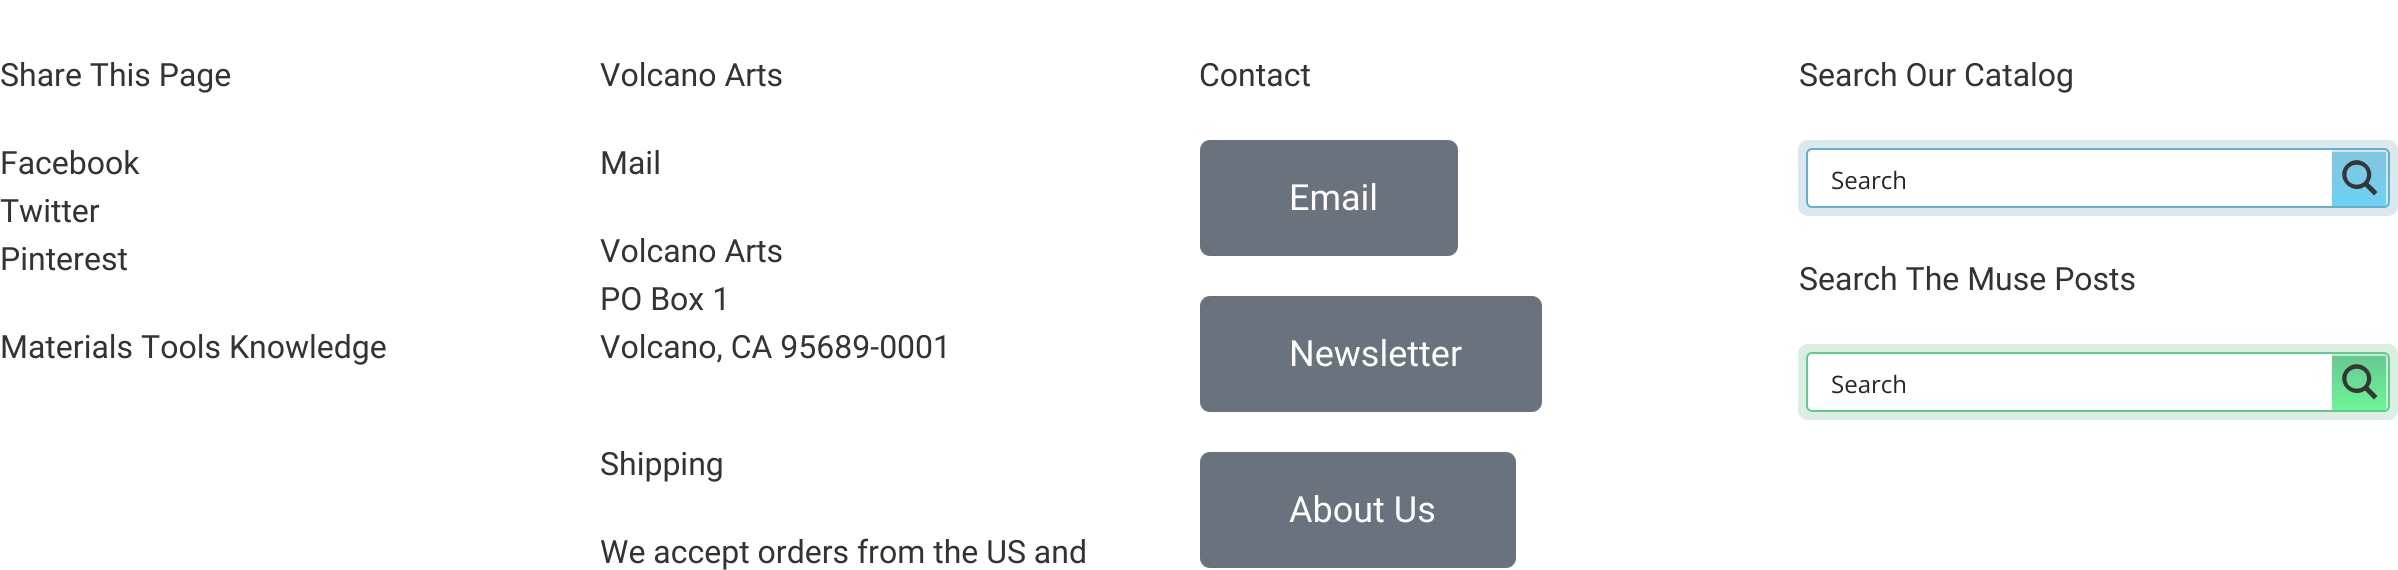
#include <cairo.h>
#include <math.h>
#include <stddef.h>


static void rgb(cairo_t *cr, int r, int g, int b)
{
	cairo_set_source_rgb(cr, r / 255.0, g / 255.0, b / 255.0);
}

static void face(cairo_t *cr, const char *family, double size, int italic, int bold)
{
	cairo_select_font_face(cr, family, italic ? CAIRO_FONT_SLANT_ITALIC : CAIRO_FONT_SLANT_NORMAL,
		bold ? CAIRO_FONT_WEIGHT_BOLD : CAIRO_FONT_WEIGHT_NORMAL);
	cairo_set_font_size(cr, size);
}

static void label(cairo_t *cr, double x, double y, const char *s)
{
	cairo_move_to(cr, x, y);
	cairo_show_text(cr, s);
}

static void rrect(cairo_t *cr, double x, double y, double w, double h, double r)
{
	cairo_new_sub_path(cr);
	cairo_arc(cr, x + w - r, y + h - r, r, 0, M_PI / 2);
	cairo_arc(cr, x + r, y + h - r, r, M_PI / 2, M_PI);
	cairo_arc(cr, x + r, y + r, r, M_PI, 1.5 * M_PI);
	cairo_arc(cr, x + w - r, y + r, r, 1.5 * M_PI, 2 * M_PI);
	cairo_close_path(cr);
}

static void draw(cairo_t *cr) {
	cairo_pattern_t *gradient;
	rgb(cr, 255, 255, 255);
	cairo_paint(cr);
	face(cr, "Roboto", 32, 0, 0);
	rgb(cr, 51, 51, 51);
	label(cr, 0, 86, "Share This Page");
	label(cr, 0, 174, "Facebook");
	label(cr, 0, 222, "Twitter");
	label(cr, 0, 270, "Pinterest");
	label(cr, 0, 358, "Materials Tools Knowledge");
	label(cr, 600, 86, "Volcano Arts");
	label(cr, 600, 174, "Mail");
	label(cr, 600, 262, "Volcano Arts");
	label(cr, 600, 310, "PO Box 1");
	label(cr, 600, 358, "Volcano, CA 95689-0001");
	label(cr, 600, 475, "Shipping");
	label(cr, 600, 563, "We accept orders from the US and");
	label(cr, 1199, 86, "Contact");
	rgb(cr, 105, 114, 125);
	rrect(cr, 1200, 140, 258, 116, 10);
	cairo_fill(cr);
	face(cr, "Roboto", 36, 0, 0);
	rgb(cr, 255, 255, 255);
	label(cr, 1289, 210, "Email");
	rgb(cr, 105, 114, 125);
	rrect(cr, 1200, 296, 342, 116, 10);
	cairo_fill(cr);
	rgb(cr, 255, 255, 255);
	label(cr, 1289, 366, "Newsletter");
	rgb(cr, 105, 114, 125);
	rrect(cr, 1200, 452, 316, 116, 10);
	cairo_fill(cr);
	rgb(cr, 255, 255, 255);
	label(cr, 1289, 522, "About Us");
	face(cr, "Roboto", 32, 0, 0);
	rgb(cr, 51, 51, 51);
	label(cr, 1799, 86, "Search Our Catalog");
	rgb(cr, 219, 233, 238);
	rrect(cr, 1798, 140, 600, 76, 10);
	cairo_fill(cr);
	rgb(cr, 255, 255, 255);
	rrect(cr, 1807, 149, 582, 58, 5);
	cairo_fill_preserve(cr);
	rgb(cr, 104, 174, 199);
	cairo_stroke(cr);
	face(cr, "Open Sans", 24, 0, 0);
	rgb(cr, 38, 38, 38);
	label(cr, 1831, 189, "Search");
	gradient = cairo_pattern_create_linear(2360, 150, 2360, 206);
	cairo_pattern_add_color_stop_rgba(gradient, 0, 0.518, 0.773, 0.863, 1);
	cairo_pattern_add_color_stop_rgba(gradient, 1, 0.424, 0.82, 0.961, 1);
	cairo_set_source(cr, gradient);
	cairo_pattern_destroy(gradient);
	cairo_new_path(cr);
	cairo_move_to(cr, 2332, 150);
	cairo_line_to(cr, 2384, 150);
	cairo_curve_to(cr, 2386, 150, 2388, 152, 2388, 154);
	cairo_line_to(cr, 2388, 202);
	cairo_curve_to(cr, 2388, 204, 2386, 206, 2384, 206);
	cairo_line_to(cr, 2332, 206);
	cairo_close_path(cr);
	cairo_fill(cr);
	cairo_save(cr);
	cairo_rectangle(cr, 2332, 150, 56, 56);
	cairo_clip(cr);
	cairo_set_source_rgba(cr, 1, 1, 1, 0.61);
	cairo_new_path(cr);
	cairo_move_to(cr, 2330, 152);
	cairo_line_to(cr, 2330, 206);
	cairo_line_to(cr, 2134, 206);
	cairo_line_to(cr, 2134, 150);
	cairo_line_to(cr, 2384, 150);
	cairo_line_to(cr, 2386, 151);
	cairo_line_to(cr, 2388, 153);
	cairo_line_to(cr, 2388, 203);
	cairo_line_to(cr, 2386, 205);
	cairo_line_to(cr, 2386, 152);
	cairo_close_path(cr);
	cairo_fill(cr);
	cairo_restore(cr);
	rgb(cr, 54, 54, 54);
	cairo_new_path(cr);
	cairo_move_to(cr, 2377.5, 192);
	cairo_line_to(cr, 2368.5, 183);
	cairo_curve_to(cr, 2378.5, 169, 2359.5, 152, 2346.5, 164.5);
	cairo_curve_to(cr, 2334, 177, 2351, 196, 2365, 186.5);
	cairo_line_to(cr, 2374, 195.5);
	cairo_close_path(cr);
	cairo_move_to(cr, 2346.5, 174.5);
	cairo_curve_to(cr, 2346.5, 161.5, 2367, 161.5, 2367, 174.5);
	cairo_curve_to(cr, 2367, 188, 2346.5, 188, 2346.5, 174.5);
	cairo_close_path(cr);
	cairo_fill(cr);
	face(cr, "Roboto", 32, 0, 0);
	rgb(cr, 51, 51, 51);
	label(cr, 1799, 290, "Search The Muse Posts");
	rgb(cr, 219, 238, 226);
	rrect(cr, 1798, 344, 600, 76, 10);
	cairo_fill(cr);
	rgb(cr, 255, 255, 255);
	rrect(cr, 1807, 353, 582, 58, 5);
	cairo_fill_preserve(cr);
	rgb(cr, 104, 199, 145);
	cairo_stroke(cr);
	face(cr, "Open Sans", 24, 0, 0);
	rgb(cr, 38, 38, 38);
	label(cr, 1831, 393, "Search");
	gradient = cairo_pattern_create_linear(2360, 354, 2360, 410);
	cairo_pattern_add_color_stop_rgba(gradient, 0, 0.408, 0.78, 0.569, 1);
	cairo_pattern_add_color_stop_rgba(gradient, 1, 0.424, 0.961, 0.596, 1);
	cairo_set_source(cr, gradient);
	cairo_pattern_destroy(gradient);
	cairo_new_path(cr);
	cairo_move_to(cr, 2332, 354);
	cairo_line_to(cr, 2384, 354);
	cairo_curve_to(cr, 2386, 354, 2388, 356, 2388, 358);
	cairo_line_to(cr, 2388, 406);
	cairo_curve_to(cr, 2388, 408, 2386, 410, 2384, 410);
	cairo_line_to(cr, 2332, 410);
	cairo_close_path(cr);
	cairo_fill(cr);
	cairo_save(cr);
	cairo_rectangle(cr, 2332, 354, 56, 56);
	cairo_clip(cr);
	cairo_set_source_rgba(cr, 1, 1, 1, 0.61);
	cairo_new_path(cr);
	cairo_move_to(cr, 2330, 356);
	cairo_line_to(cr, 2330, 410);
	cairo_line_to(cr, 2134, 410);
	cairo_line_to(cr, 2134, 354);
	cairo_line_to(cr, 2384, 354);
	cairo_line_to(cr, 2386, 355);
	cairo_line_to(cr, 2388, 357);
	cairo_line_to(cr, 2388, 407);
	cairo_line_to(cr, 2386, 409);
	cairo_line_to(cr, 2386, 356);
	cairo_close_path(cr);
	cairo_fill(cr);
	cairo_restore(cr);
	rgb(cr, 54, 54, 54);
	cairo_new_path(cr);
	cairo_move_to(cr, 2377.5, 396);
	cairo_line_to(cr, 2368.5, 387);
	cairo_curve_to(cr, 2378.5, 373, 2359.5, 356, 2346.5, 368.5);
	cairo_curve_to(cr, 2334, 381, 2351, 400, 2365, 390.5);
	cairo_line_to(cr, 2374, 399.5);
	cairo_close_path(cr);
	cairo_move_to(cr, 2346.5, 378.5);
	cairo_curve_to(cr, 2346.5, 365.5, 2367, 365.5, 2367, 378.5);
	cairo_curve_to(cr, 2367, 392, 2346.5, 392, 2346.5, 378.5);
	cairo_close_path(cr);
	cairo_fill(cr);
}

int main(void) {
	cairo_surface_t *surface = cairo_image_surface_create(CAIRO_FORMAT_RGB24, 2398, 570);
	cairo_t *cr = cairo_create(surface);
	cairo_font_options_t *options = cairo_font_options_create();
	cairo_font_options_set_hint_metrics(options, CAIRO_HINT_METRICS_OFF);
	cairo_font_options_set_hint_style(options, CAIRO_HINT_STYLE_NONE);
	cairo_set_font_options(cr, options);
	cairo_set_miter_limit(cr, 4);
	draw(cr);
	cairo_surface_write_to_png(surface, "render.png");
	cairo_font_options_destroy(options);
	cairo_destroy(cr);
	cairo_surface_destroy(surface);
	return 0;
}
